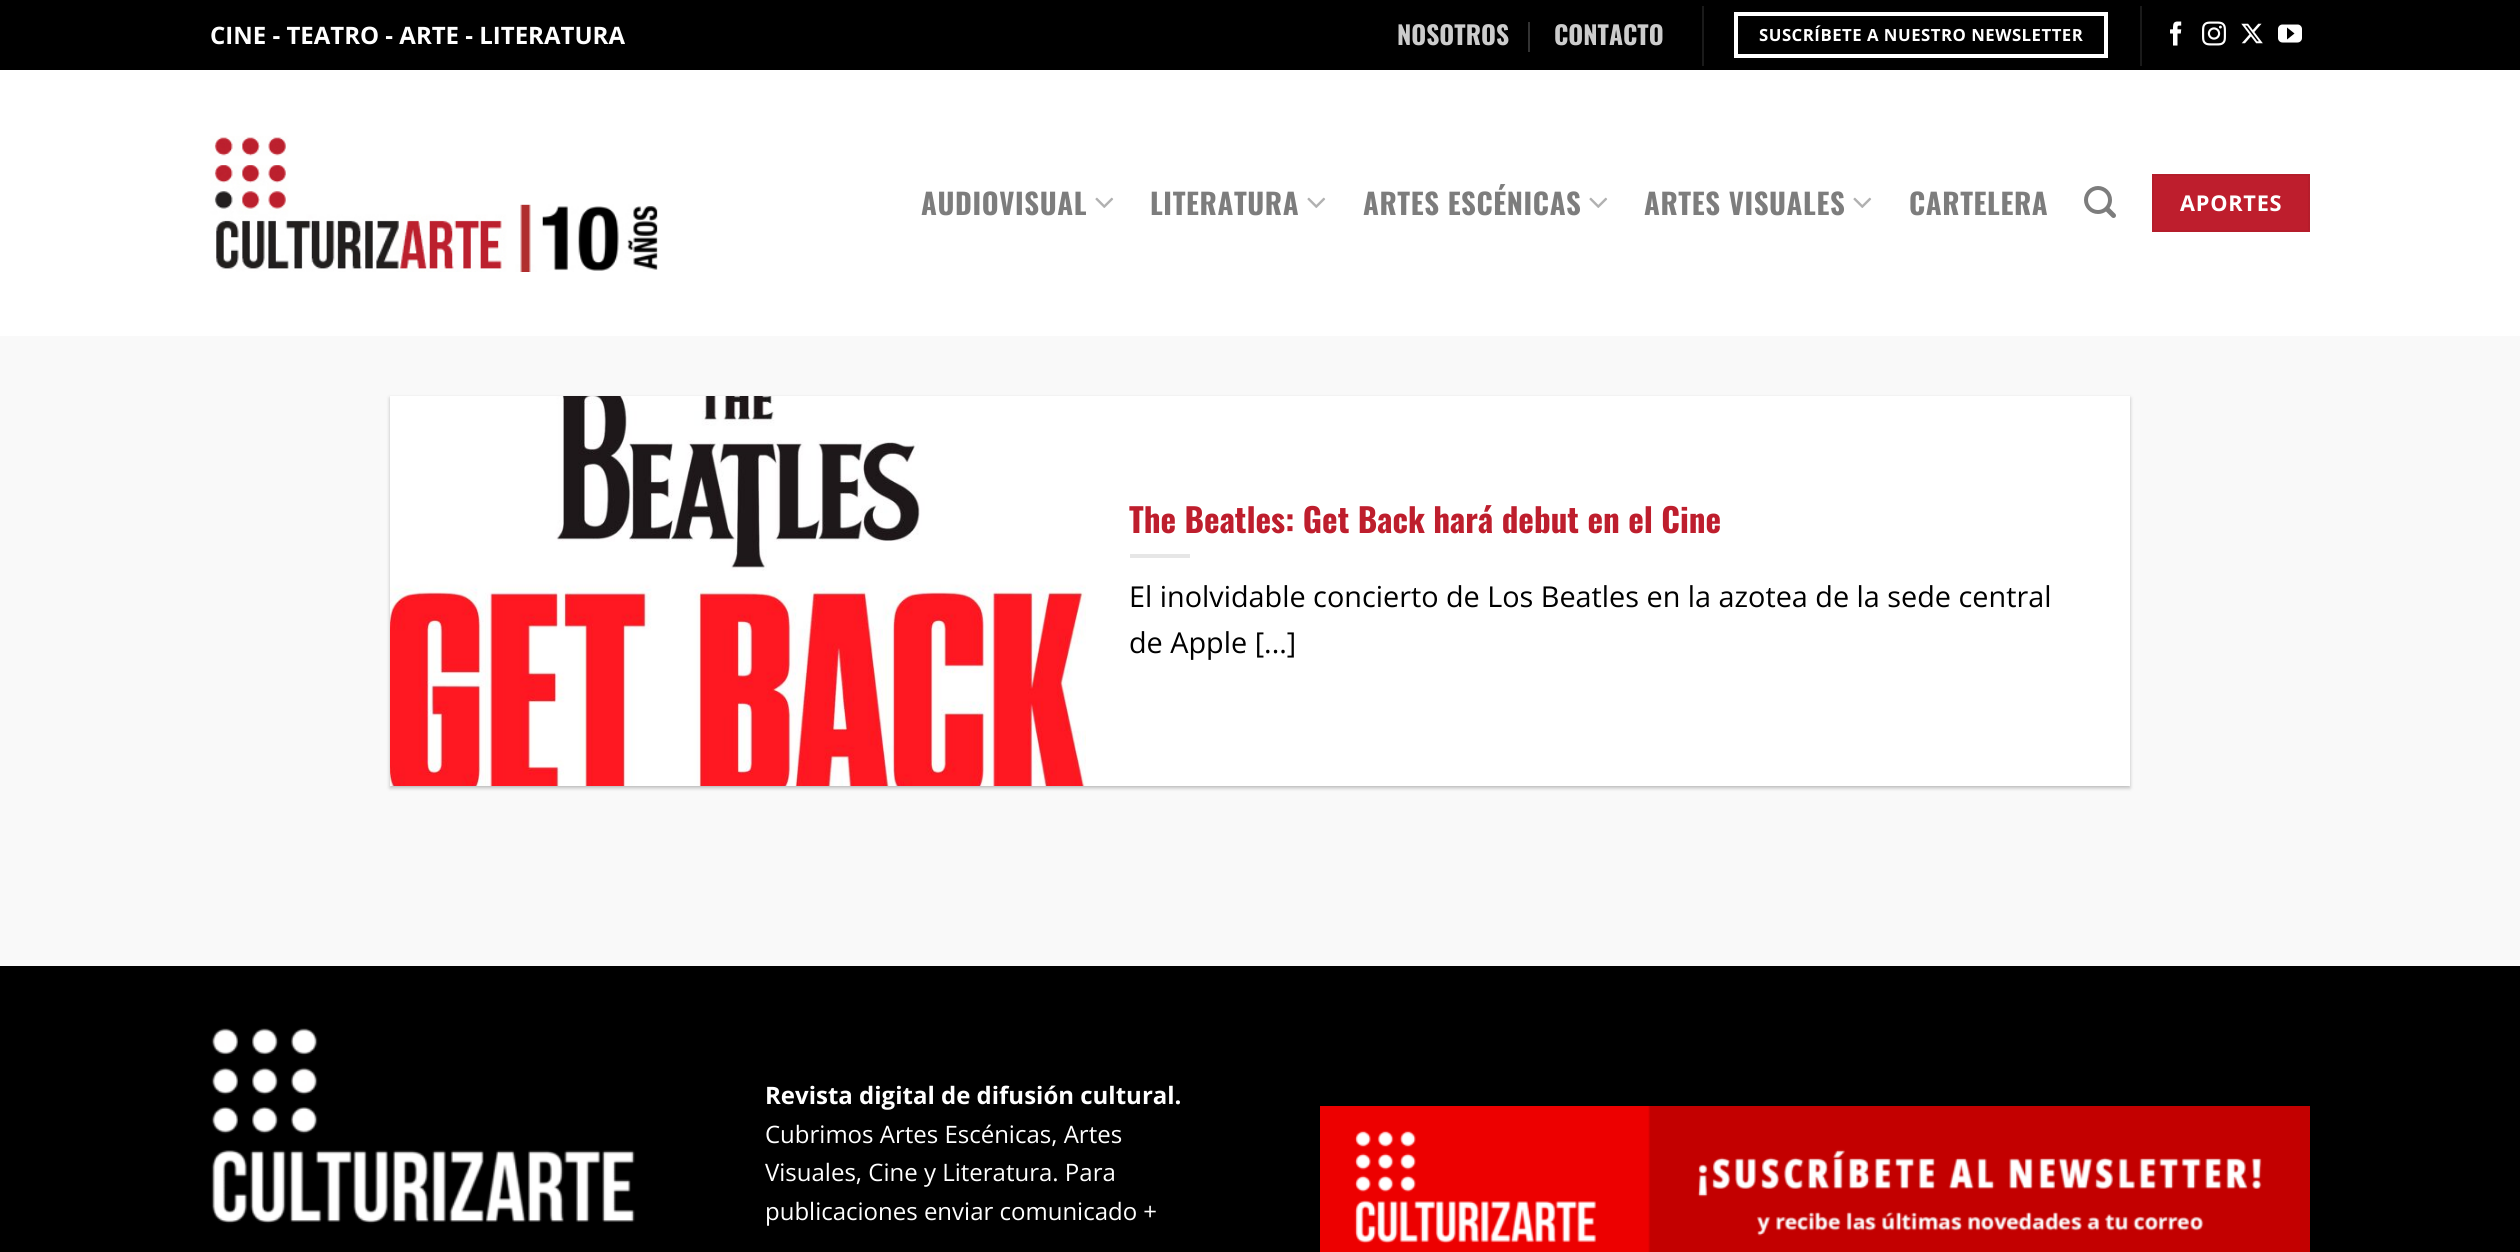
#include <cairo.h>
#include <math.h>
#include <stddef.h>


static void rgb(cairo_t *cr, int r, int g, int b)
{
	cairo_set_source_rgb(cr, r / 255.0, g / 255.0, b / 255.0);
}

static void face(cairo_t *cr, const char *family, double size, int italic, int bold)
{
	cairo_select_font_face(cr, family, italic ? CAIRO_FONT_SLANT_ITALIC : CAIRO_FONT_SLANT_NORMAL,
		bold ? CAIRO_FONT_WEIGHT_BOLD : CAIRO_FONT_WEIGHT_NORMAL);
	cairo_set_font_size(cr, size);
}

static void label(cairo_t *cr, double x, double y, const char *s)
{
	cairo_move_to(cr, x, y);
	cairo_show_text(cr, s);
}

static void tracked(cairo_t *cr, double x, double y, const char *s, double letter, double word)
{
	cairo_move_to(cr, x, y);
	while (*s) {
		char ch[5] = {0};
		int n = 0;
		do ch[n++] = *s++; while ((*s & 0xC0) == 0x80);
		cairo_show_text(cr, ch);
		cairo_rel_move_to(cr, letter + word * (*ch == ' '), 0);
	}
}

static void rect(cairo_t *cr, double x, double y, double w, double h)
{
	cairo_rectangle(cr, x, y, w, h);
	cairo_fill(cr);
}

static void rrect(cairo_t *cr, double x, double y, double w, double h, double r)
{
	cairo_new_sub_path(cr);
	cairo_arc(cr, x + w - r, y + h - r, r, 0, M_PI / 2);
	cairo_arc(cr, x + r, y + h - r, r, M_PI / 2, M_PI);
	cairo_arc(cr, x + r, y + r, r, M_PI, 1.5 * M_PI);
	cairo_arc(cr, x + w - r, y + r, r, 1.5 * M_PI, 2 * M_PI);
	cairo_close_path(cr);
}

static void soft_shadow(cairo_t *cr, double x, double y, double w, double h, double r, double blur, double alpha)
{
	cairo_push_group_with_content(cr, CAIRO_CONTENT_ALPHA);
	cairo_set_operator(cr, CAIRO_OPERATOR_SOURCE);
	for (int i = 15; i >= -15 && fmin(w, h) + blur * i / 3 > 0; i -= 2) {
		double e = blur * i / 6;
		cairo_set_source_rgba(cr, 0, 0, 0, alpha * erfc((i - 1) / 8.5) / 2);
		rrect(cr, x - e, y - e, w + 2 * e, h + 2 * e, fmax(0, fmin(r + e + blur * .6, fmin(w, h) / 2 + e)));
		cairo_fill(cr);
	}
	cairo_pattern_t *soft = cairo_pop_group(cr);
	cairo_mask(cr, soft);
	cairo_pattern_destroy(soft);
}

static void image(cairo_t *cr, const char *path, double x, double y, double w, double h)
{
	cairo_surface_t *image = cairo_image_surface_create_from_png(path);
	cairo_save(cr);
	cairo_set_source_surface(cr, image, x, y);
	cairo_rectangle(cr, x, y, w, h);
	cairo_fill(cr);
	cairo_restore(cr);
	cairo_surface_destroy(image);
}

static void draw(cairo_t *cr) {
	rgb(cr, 249, 249, 249);
	cairo_paint(cr);
	rgb(cr, 255, 255, 255);
	rect(cr, 0, 70, 2520, 266);
	rgb(cr, 0, 0, 0);
	rect(cr, 0, 0, 2520, 70);
	face(cr, "Open Sans", 24, 0, 1);
	rgb(cr, 255, 255, 255);
	label(cr, 210, 44, "CINE - TEATRO - ARTE - LITERATURA");
	face(cr, "Oswald", 25.5, 0, 1);
	rgb(cr, 204, 204, 204);
	label(cr, 1397, 45, "NOSOTROS");
	rgb(cr, 51, 51, 51);
	rect(cr, 1528, 22, 2, 30);
	rgb(cr, 204, 204, 204);
	label(cr, 1554, 45, "CONTACTO");
	rgb(cr, 26, 26, 26);
	rect(cr, 1702, 6, 2, 60);
	cairo_rectangle(cr, 1736, 14, 370, 42);
	rgb(cr, 255, 255, 255);
	cairo_set_line_width(cr, 4);
	cairo_stroke(cr);
	face(cr, "Open Sans", 16.75, 0, 1);
	tracked(cr, 1759, 41, "SUSCRÍBETE A NUESTRO NEWSLETTER", 0.5, 0);
	rgb(cr, 26, 26, 26);
	rect(cr, 2140, 6, 2, 60);
	image(cr, "image0.png", 2170, 21, 12, 25);
	image(cr, "image1.png", 2202, 21, 24, 25);
	image(cr, "image2.png", 2241, 23, 22, 21);
	image(cr, "image3.png", 2278, 24, 24, 19);
	image(cr, "image4.png", 210, 136, 448, 136);
	face(cr, "Oswald", 28.8, 0, 1);
	rgb(cr, 125, 125, 125);
	tracked(cr, 921, 215, "AUDIOVISUAL", 0.6, 0);
	image(cr, "image5.png", 1095, 197, 19, 11);
	tracked(cr, 1150, 215, "LITERATURA", 0.6, 0);
	image(cr, "image5.png", 1307, 197, 19, 11);
	tracked(cr, 1363, 215, "ARTES ESCÉNICAS", 0.6, 0);
	image(cr, "image5.png", 1589, 197, 19, 11);
	tracked(cr, 1644, 215, "ARTES VISUALES", 0.6, 0);
	image(cr, "image5.png", 1853, 197, 19, 11);
	tracked(cr, 1909, 215, "CARTELERA", 0.6, 0);
	image(cr, "image6.png", 2084, 186, 32, 32);
	rgb(cr, 190, 30, 45);
	cairo_rectangle(cr, 2153, 175, 156, 56);
	cairo_fill_preserve(cr);
	rgb(cr, 181, 29, 43);
	cairo_set_line_width(cr, 2);
	cairo_stroke(cr);
	face(cr, "Open Sans", 21.75, 0, 1);
	rgb(cr, 255, 255, 255);
	tracked(cr, 2180, 211, "APORTES", 0.75, 0);
	rgb(cr, 0, 0, 0);
	soft_shadow(cr, 390, 398, 1740, 390, 0, 2, 0.24);
	soft_shadow(cr, 394, 402, 1732, 382, 0, 3, 0.12);
	rgb(cr, 255, 255, 255);
	rect(cr, 1086, 396, 1044, 390);
	image(cr, "image7.png", 390, 396, 696, 390);
	face(cr, "Oswald", 33.1, 0, 1);
	rgb(cr, 190, 30, 45);
	label(cr, 1129, 533, "The Beatles: Get Back hará debut en el Cine");
	rgb(cr, 230, 230, 230);
	rect(cr, 1130, 554, 60, 4);
	face(cr, "Open Sans", 28.8, 0, 0);
	rgb(cr, 0, 0, 0);
	label(cr, 1129, 607, "El inolvidable concierto de Los Beatles en la azotea de la sede central");
	label(cr, 1129, 653, "de Apple [...]");
	rect(cr, 0, 966, 2520, 286);
	image(cr, "image8.png", 211, 1028, 424, 196);
	face(cr, "Open Sans", 24, 0, 1);
	rgb(cr, 255, 255, 255);
	label(cr, 765, 1104, "Revista digital de difusión cultural.");
	face(cr, "Open Sans", 24, 0, 0);
	label(cr, 765, 1143, "Cubrimos Artes Escénicas, Artes");
	label(cr, 765, 1181, "Visuales, Cine y Literatura. Para");
	label(cr, 765, 1220, "publicaciones enviar comunicado +");
	image(cr, "image9.png", 1320, 1106, 990, 146);
}

int main(void) {
	cairo_surface_t *surface = cairo_image_surface_create(CAIRO_FORMAT_RGB24, 2520, 1252);
	cairo_t *cr = cairo_create(surface);
	cairo_font_options_t *options = cairo_font_options_create();
	cairo_font_options_set_hint_metrics(options, CAIRO_HINT_METRICS_OFF);
	cairo_font_options_set_hint_style(options, CAIRO_HINT_STYLE_NONE);
	cairo_set_font_options(cr, options);
	cairo_set_miter_limit(cr, 4);
	draw(cr);
	cairo_surface_write_to_png(surface, "render.png");
	cairo_font_options_destroy(options);
	cairo_destroy(cr);
	cairo_surface_destroy(surface);
	return 0;
}
